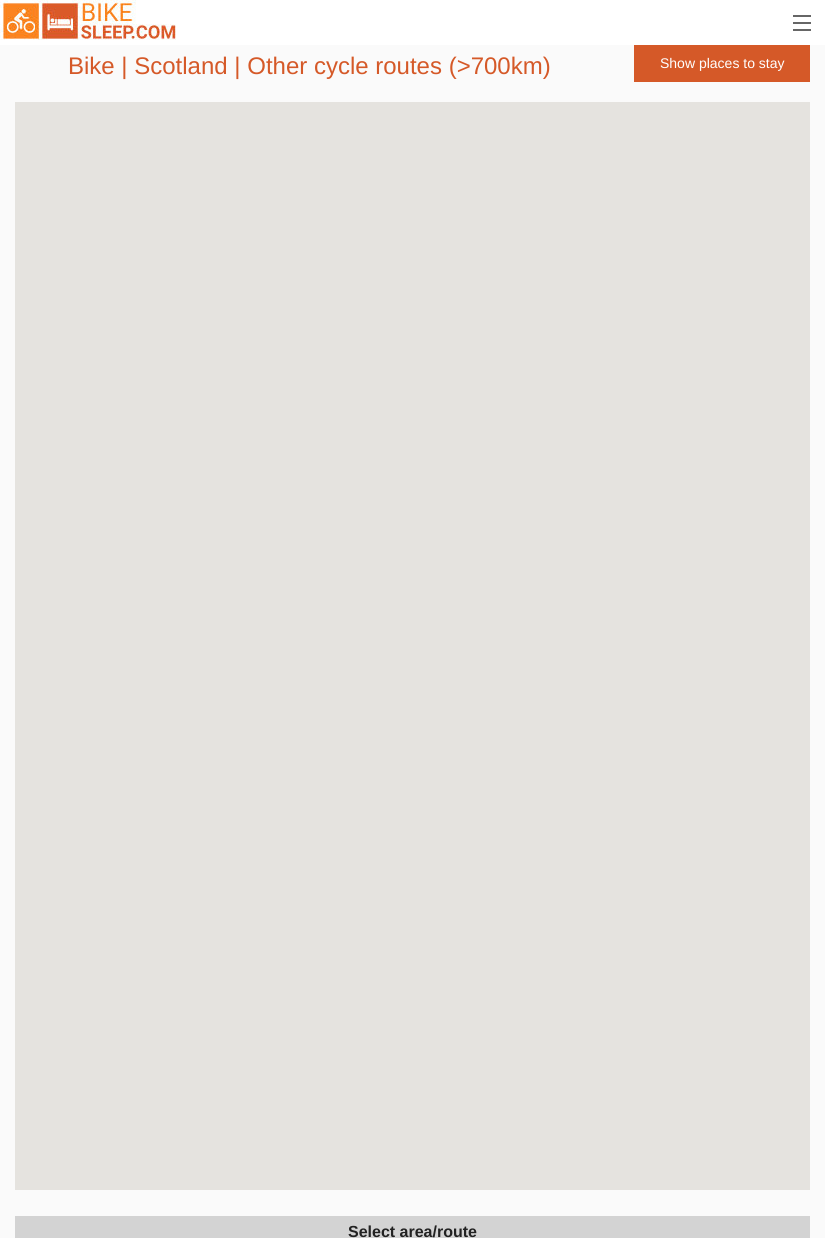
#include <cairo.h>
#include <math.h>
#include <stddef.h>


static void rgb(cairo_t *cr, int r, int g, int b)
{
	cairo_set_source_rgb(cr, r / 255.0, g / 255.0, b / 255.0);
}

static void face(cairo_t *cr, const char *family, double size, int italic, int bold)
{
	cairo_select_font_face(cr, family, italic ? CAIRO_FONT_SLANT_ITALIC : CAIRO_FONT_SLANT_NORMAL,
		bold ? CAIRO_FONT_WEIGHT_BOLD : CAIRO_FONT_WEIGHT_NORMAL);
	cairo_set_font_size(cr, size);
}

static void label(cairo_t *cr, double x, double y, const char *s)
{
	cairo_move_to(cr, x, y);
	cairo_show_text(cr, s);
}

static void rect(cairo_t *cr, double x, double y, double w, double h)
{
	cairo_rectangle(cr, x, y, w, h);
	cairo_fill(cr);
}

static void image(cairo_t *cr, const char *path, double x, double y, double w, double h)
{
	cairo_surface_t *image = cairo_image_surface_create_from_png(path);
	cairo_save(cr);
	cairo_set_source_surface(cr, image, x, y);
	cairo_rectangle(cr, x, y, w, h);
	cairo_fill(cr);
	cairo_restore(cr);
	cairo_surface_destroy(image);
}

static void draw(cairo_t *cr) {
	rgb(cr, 250, 250, 250);
	cairo_paint(cr);
	rgb(cr, 255, 255, 255);
	rect(cr, 0, 0, 825, 45);
	image(cr, "image0.png", 0, 0, 176, 40);
	rgb(cr, 102, 102, 102);
	rect(cr, 793, 29, 18, 2);
	rect(cr, 793, 22, 18, 2);
	rect(cr, 793, 15, 18, 2);
	face(cr, "Liberation Sans", 24, 0, 0);
	rgb(cr, 213, 89, 40);
	label(cr, 68, 74, "Bike | Scotland | Other cycle routes (>700km)");
	rect(cr, 634, 45, 176, 37);
	face(cr, "Liberation Sans", 14, 0, 0);
	rgb(cr, 255, 255, 255);
	label(cr, 660, 68, "Show places to stay");
	rgb(cr, 229, 227, 223);
	rect(cr, 15, 102, 795, 1088);
	rgb(cr, 211, 211, 211);
	rect(cr, 15, 1216, 795, 22);
	face(cr, "Liberation Sans", 16, 0, 1);
	rgb(cr, 34, 34, 34);
	label(cr, 348, 1237, "Select area/route");
}

int main(void) {
	cairo_surface_t *surface = cairo_image_surface_create(CAIRO_FORMAT_RGB24, 825, 1238);
	cairo_t *cr = cairo_create(surface);
	cairo_font_options_t *options = cairo_font_options_create();
	cairo_font_options_set_hint_metrics(options, CAIRO_HINT_METRICS_OFF);
	cairo_font_options_set_hint_style(options, CAIRO_HINT_STYLE_NONE);
	cairo_set_font_options(cr, options);
	cairo_set_miter_limit(cr, 4);
	draw(cr);
	cairo_surface_write_to_png(surface, "render.png");
	cairo_font_options_destroy(options);
	cairo_destroy(cr);
	cairo_surface_destroy(surface);
	return 0;
}
